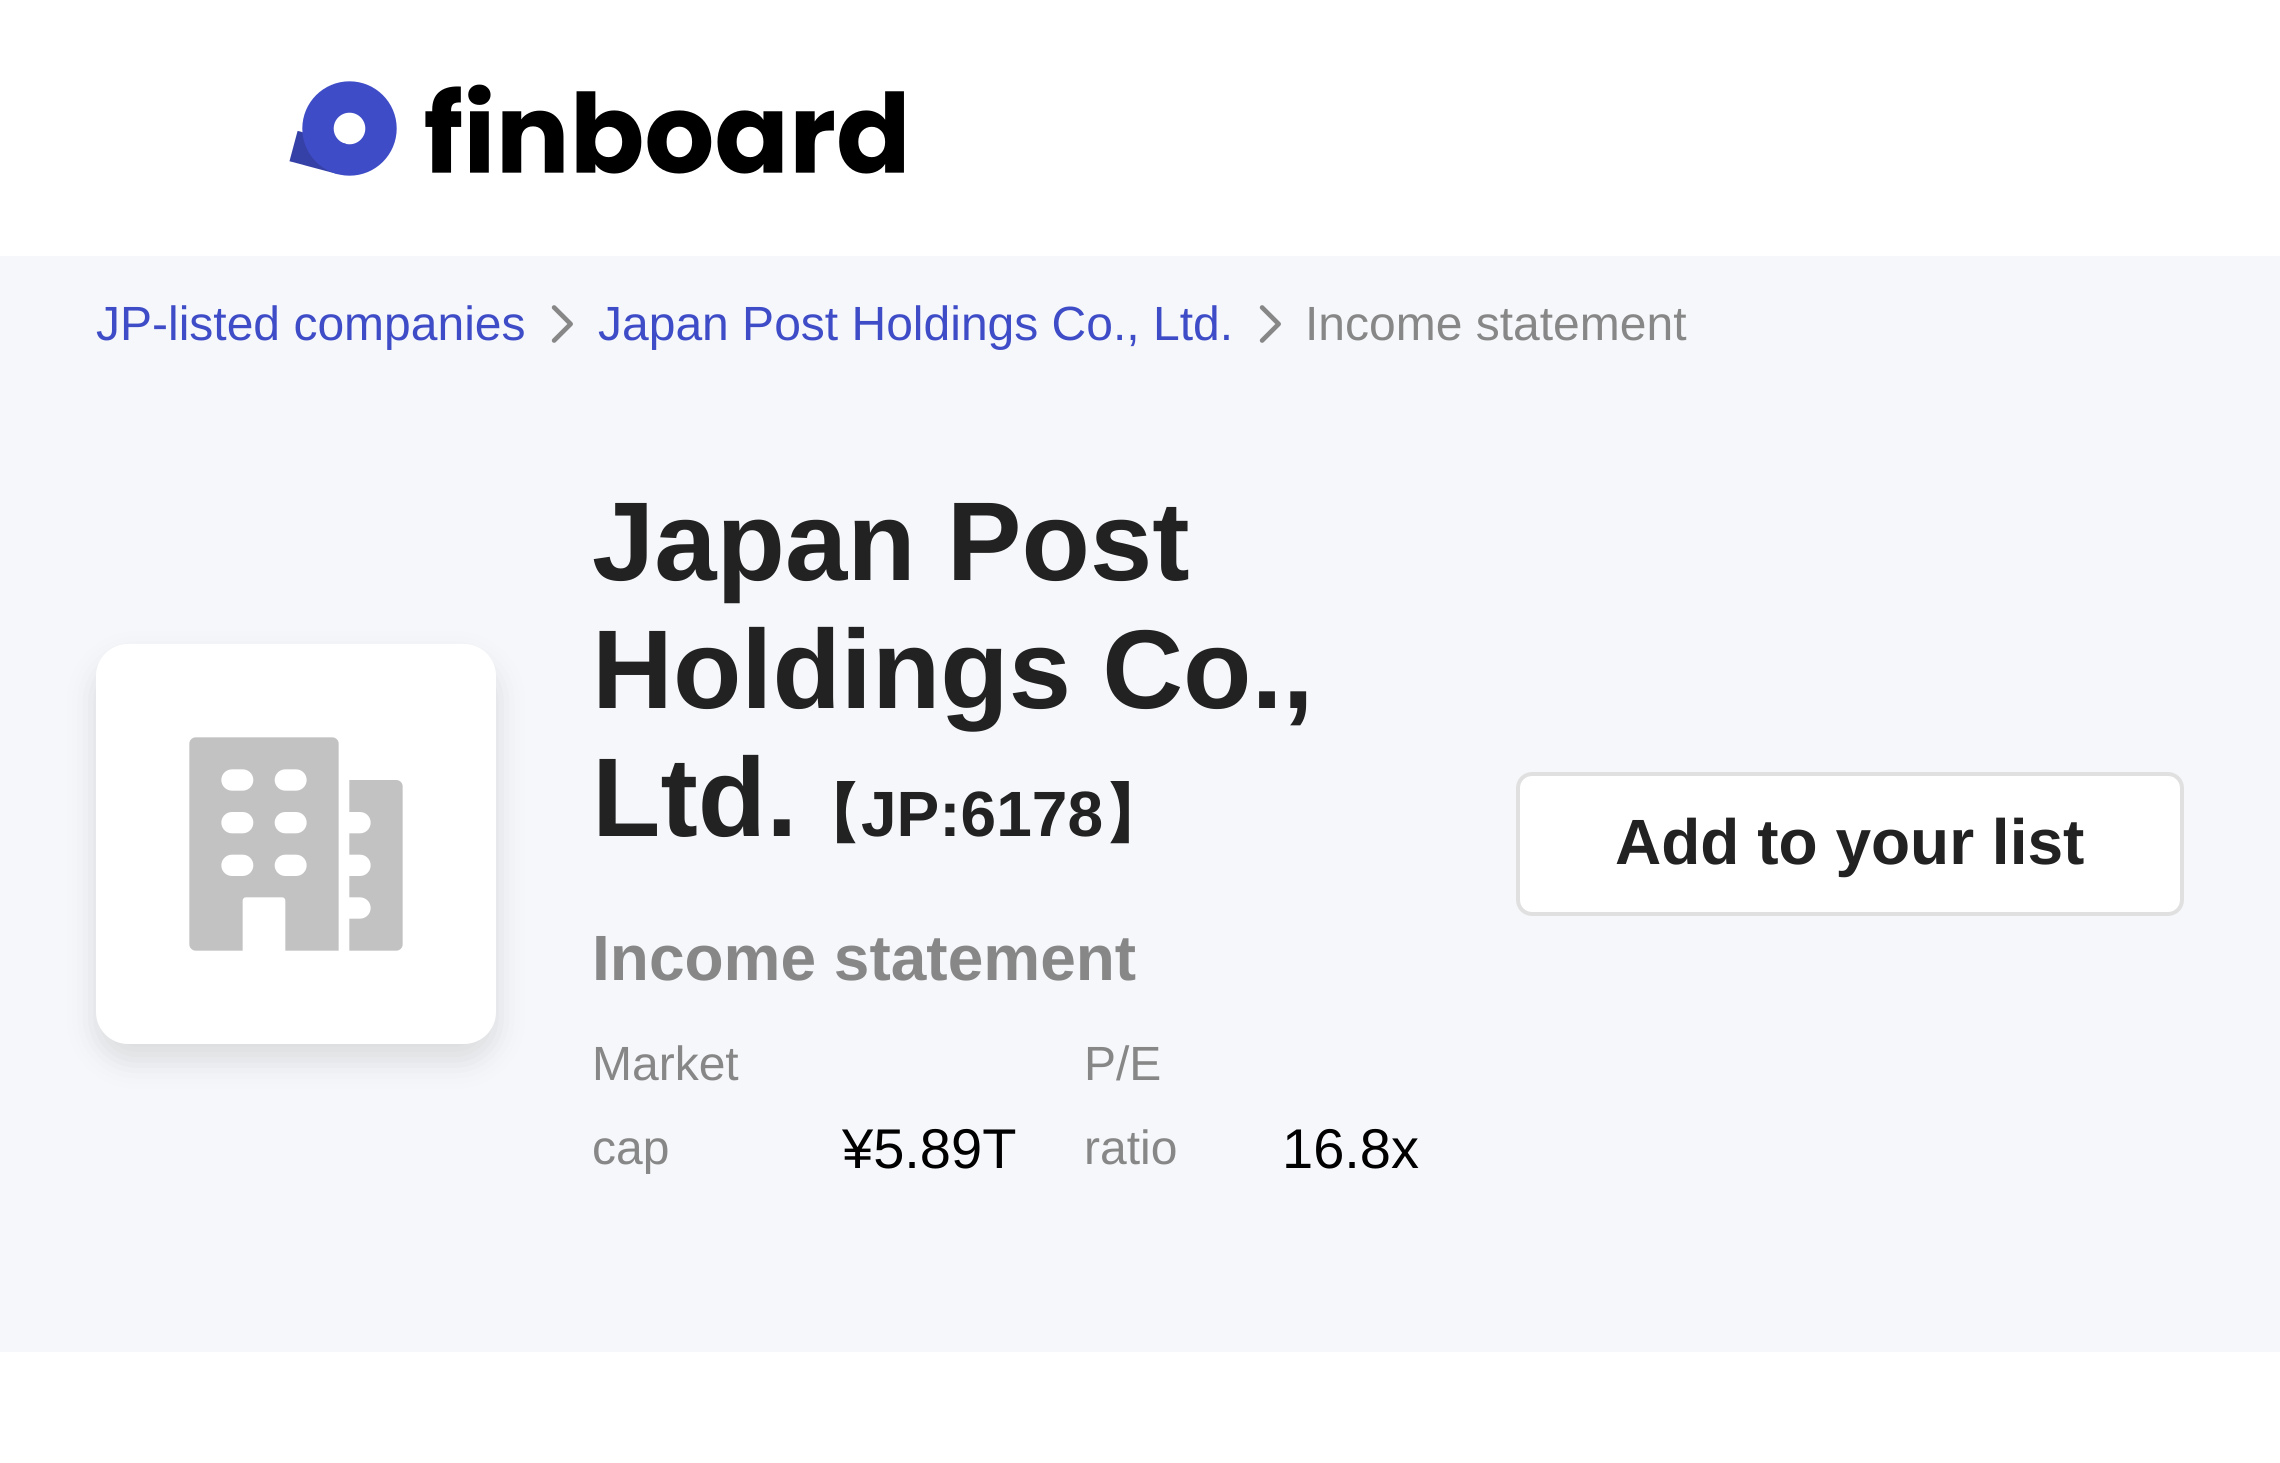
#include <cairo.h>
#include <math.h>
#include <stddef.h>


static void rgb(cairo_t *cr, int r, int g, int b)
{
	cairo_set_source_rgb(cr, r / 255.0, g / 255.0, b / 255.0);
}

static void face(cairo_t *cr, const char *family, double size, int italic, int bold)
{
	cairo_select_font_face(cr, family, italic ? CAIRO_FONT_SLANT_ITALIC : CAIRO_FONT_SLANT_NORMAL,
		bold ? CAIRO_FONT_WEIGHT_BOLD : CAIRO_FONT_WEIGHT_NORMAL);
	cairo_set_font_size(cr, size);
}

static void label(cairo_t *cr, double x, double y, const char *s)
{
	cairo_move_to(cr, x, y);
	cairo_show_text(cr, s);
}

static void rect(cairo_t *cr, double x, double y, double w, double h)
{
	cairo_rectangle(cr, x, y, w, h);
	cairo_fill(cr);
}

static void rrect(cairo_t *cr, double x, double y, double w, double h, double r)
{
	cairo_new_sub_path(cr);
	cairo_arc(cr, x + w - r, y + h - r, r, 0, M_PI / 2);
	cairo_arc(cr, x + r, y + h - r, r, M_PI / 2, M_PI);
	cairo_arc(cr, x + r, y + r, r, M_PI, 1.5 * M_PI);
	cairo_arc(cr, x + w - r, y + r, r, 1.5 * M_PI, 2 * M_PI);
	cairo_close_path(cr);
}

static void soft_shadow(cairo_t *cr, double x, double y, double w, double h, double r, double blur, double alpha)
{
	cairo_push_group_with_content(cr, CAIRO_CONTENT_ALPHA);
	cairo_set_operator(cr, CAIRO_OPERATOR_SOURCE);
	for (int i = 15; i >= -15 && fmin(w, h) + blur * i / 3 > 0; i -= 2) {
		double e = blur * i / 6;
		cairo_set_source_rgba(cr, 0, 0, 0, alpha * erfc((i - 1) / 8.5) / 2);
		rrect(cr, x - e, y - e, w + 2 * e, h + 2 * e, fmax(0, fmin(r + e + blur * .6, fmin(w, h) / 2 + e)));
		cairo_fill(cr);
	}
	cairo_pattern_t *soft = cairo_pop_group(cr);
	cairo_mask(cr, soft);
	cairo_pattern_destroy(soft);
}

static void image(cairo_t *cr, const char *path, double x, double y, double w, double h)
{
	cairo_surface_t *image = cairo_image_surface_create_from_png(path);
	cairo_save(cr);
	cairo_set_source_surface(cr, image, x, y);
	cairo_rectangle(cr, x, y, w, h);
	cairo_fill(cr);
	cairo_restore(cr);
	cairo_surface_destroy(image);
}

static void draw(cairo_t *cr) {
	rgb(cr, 255, 255, 255);
	cairo_paint(cr);
	image(cr, "image0.png", 289, 81, 615, 95);
	rgb(cr, 245, 247, 250);
	rect(cr, 0, 256, 2280, 1096);
	face(cr, "Liberation Sans", 48, 0, 0);
	rgb(cr, 62, 76, 199);
	label(cr, 96, 340, "JP-listed companies");
	image(cr, "image1.png", 551, 305, 22, 38);
	label(cr, 598, 340, "Japan Post Holdings Co., Ltd.");
	image(cr, "image1.png", 1259, 305, 22, 38);
	rgb(cr, 135, 135, 135);
	label(cr, 1305, 340, "Income statement");
	rgb(cr, 0, 0, 0);
	soft_shadow(cr, 96, 660, 400, 400, 32, 16, 0.12);
	rgb(cr, 255, 255, 255);
	rrect(cr, 96, 644, 400, 400, 32);
	cairo_fill(cr);
	image(cr, "image2.png", 189, 737, 214, 214);
	face(cr, "Liberation Sans", 112, 0, 1);
	rgb(cr, 34, 34, 34);
	label(cr, 592, 580, "Japan Post");
	label(cr, 592, 708, "Holdings Co.,");
	label(cr, 592, 836, "Ltd.");
	face(cr, "WenQuanYi Zen Hei", 64, 0, 1);
	label(cr, 797, 836, "【");
	face(cr, "Liberation Sans", 64, 0, 1);
	label(cr, 861, 836, "JP:6178");
	face(cr, "WenQuanYi Zen Hei", 64, 0, 1);
	label(cr, 1103, 836, "】");
	face(cr, "Liberation Sans", 64, 0, 1);
	rgb(cr, 135, 135, 135);
	label(cr, 592, 980, "Income statement");
	face(cr, "Liberation Sans", 48, 0, 0);
	label(cr, 592, 1080, "Market");
	label(cr, 592, 1164, "cap");
	face(cr, "Liberation Sans", 56, 0, 0);
	rgb(cr, 0, 0, 0);
	label(cr, 842, 1168, "¥5.89T");
	face(cr, "Liberation Sans", 48, 0, 0);
	rgb(cr, 135, 135, 135);
	label(cr, 1084, 1080, "P/E");
	label(cr, 1084, 1164, "ratio");
	face(cr, "Liberation Sans", 56, 0, 0);
	rgb(cr, 0, 0, 0);
	label(cr, 1282, 1168, "16.8x");
	rgb(cr, 255, 255, 255);
	rrect(cr, 1518, 774, 664, 140, 14);
	cairo_fill_preserve(cr);
	rgb(cr, 224, 224, 224);
	cairo_set_line_width(cr, 4);
	cairo_stroke(cr);
	face(cr, "Liberation Sans", 64, 0, 1);
	rgb(cr, 34, 34, 34);
	label(cr, 1615, 864, "Add to your list");
}

int main(void) {
	cairo_surface_t *surface = cairo_image_surface_create(CAIRO_FORMAT_RGB24, 2280, 1463);
	cairo_t *cr = cairo_create(surface);
	cairo_font_options_t *options = cairo_font_options_create();
	cairo_font_options_set_hint_metrics(options, CAIRO_HINT_METRICS_OFF);
	cairo_font_options_set_hint_style(options, CAIRO_HINT_STYLE_NONE);
	cairo_set_font_options(cr, options);
	cairo_set_miter_limit(cr, 4);
	draw(cr);
	cairo_surface_write_to_png(surface, "render.png");
	cairo_font_options_destroy(options);
	cairo_destroy(cr);
	cairo_surface_destroy(surface);
	return 0;
}
